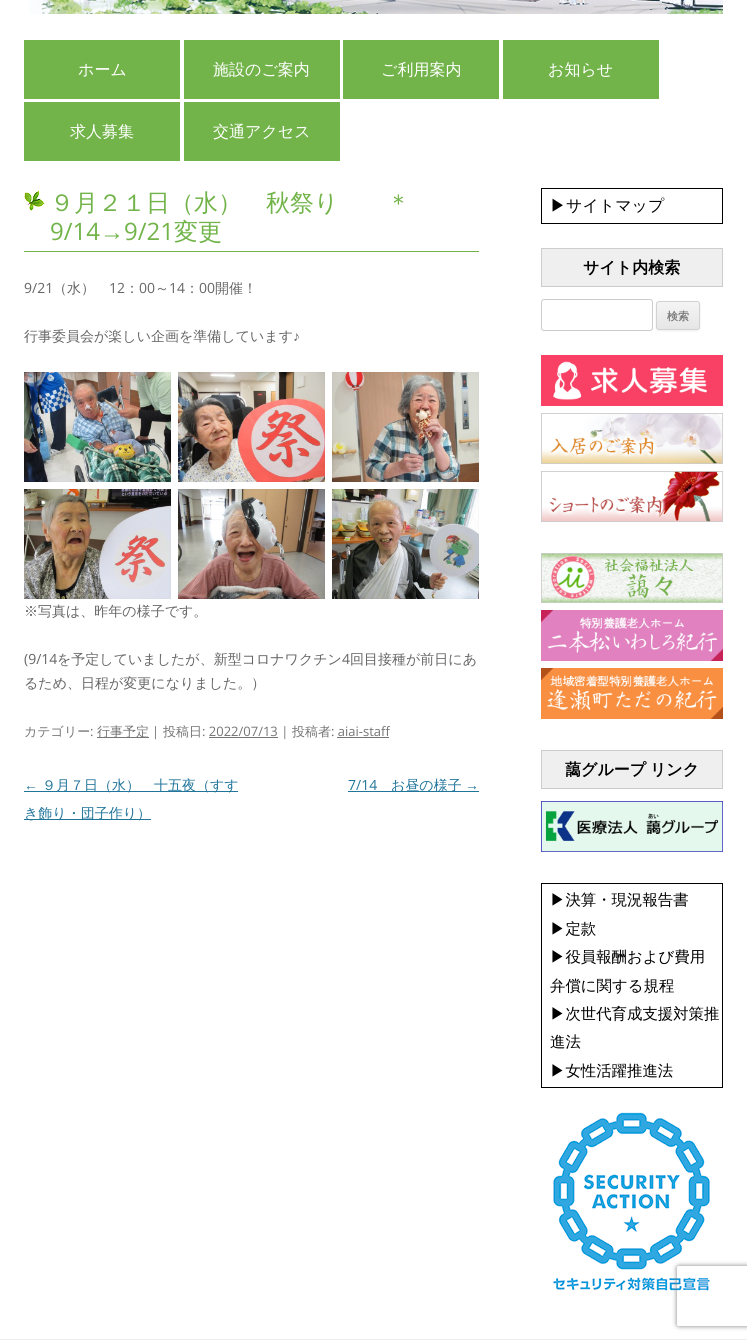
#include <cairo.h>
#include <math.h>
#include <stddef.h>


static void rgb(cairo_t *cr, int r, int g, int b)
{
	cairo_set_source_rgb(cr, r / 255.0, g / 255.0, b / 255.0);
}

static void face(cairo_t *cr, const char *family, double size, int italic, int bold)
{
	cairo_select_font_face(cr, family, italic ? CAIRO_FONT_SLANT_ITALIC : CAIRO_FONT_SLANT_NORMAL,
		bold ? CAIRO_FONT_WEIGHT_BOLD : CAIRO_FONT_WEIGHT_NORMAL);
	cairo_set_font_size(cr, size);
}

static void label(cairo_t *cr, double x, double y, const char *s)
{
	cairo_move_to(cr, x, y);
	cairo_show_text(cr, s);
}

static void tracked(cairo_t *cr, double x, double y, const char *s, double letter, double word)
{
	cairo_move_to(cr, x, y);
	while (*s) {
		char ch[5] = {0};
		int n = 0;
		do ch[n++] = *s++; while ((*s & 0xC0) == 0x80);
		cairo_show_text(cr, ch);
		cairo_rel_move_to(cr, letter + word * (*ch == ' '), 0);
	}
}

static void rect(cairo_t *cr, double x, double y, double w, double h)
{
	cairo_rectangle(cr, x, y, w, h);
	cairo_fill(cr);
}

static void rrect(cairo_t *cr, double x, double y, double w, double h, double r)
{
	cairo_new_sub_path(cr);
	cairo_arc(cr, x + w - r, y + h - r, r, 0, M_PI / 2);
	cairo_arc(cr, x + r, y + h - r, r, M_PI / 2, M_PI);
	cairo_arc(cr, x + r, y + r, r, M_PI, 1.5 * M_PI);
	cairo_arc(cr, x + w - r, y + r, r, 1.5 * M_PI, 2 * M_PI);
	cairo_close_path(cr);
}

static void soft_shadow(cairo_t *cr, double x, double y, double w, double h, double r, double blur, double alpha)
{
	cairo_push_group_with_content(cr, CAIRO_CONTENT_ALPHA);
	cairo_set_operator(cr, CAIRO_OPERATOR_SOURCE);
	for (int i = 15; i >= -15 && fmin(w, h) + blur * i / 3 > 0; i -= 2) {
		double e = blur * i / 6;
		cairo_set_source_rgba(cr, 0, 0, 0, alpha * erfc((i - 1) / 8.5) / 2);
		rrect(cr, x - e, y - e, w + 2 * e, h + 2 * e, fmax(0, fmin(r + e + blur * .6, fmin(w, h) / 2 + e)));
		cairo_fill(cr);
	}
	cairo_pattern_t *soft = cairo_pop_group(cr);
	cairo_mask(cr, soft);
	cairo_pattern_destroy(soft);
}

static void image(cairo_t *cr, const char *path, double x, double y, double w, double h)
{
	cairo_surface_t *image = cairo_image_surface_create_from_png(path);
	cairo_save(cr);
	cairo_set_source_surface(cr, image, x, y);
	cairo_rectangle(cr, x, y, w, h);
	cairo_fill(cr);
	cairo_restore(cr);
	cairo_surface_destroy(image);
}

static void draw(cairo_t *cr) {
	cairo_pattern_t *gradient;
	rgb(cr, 255, 255, 255);
	cairo_paint(cr);
	image(cr, "image0.png", 29, 0, 694, 14);
	rgb(cr, 114, 180, 74);
	rect(cr, 24, 40, 156, 59);
	face(cr, "WenQuanYi Zen Hei Medium", 16, 0, 0);
	rgb(cr, 255, 255, 255);
	label(cr, 78, 75, "ホーム");
	rgb(cr, 114, 180, 74);
	rect(cr, 184, 40, 156, 59);
	rgb(cr, 255, 255, 255);
	label(cr, 213, 75, "施設のご案内");
	rgb(cr, 114, 180, 74);
	rect(cr, 343, 40, 156, 59);
	rgb(cr, 255, 255, 255);
	label(cr, 381, 75, "ご利用案内");
	rgb(cr, 114, 180, 74);
	rect(cr, 503, 40, 156, 59);
	rgb(cr, 255, 255, 255);
	label(cr, 548, 75, "お知らせ");
	rgb(cr, 114, 180, 74);
	rect(cr, 24, 102, 156, 59);
	rgb(cr, 255, 255, 255);
	label(cr, 70, 137, "求人募集");
	rgb(cr, 114, 180, 74);
	rect(cr, 184, 102, 156, 59);
	rgb(cr, 255, 255, 255);
	label(cr, 213, 137, "交通アクセス");
	image(cr, "image1.png", 24, 191, 21, 20);
	rgb(cr, 114, 180, 74);
	rect(cr, 24, 251, 455, 1);
	face(cr, "WenQuanYi Zen Hei Medium", 24, 0, 0);
	label(cr, 50, 211, "９月２１日（水）　秋祭り　　＊");
	face(cr, "Open Sans", 24, 0, 0);
	label(cr, 50, 240, "9/14");
	face(cr, "Liberation Sans", 24, 0, 0);
	label(cr, 100, 240, "→");
	face(cr, "Open Sans", 24, 0, 0);
	label(cr, 124, 240, "9/21");
	face(cr, "WenQuanYi Zen Hei Medium", 24, 0, 0);
	label(cr, 174, 240, "変更");
	face(cr, "Open Sans", 14, 0, 0);
	rgb(cr, 102, 102, 102);
	label(cr, 24, 293, "9/21");
	face(cr, "WenQuanYi Zen Hei Medium", 14, 0, 0);
	label(cr, 53, 293, "（水）");
	face(cr, "Open Sans", 14, 0, 0);
	label(cr, 109, 293, "12");
	face(cr, "WenQuanYi Zen Hei Medium", 14, 0, 0);
	label(cr, 125, 293, "：");
	face(cr, "Open Sans", 14, 0, 0);
	label(cr, 139, 293, "00");
	face(cr, "WenQuanYi Zen Hei Medium", 14, 0, 0);
	label(cr, 155, 293, "～");
	face(cr, "Open Sans", 14, 0, 0);
	label(cr, 169, 293, "14");
	face(cr, "WenQuanYi Zen Hei Medium", 14, 0, 0);
	label(cr, 185, 293, "：");
	face(cr, "Open Sans", 14, 0, 0);
	label(cr, 199, 293, "00");
	face(cr, "WenQuanYi Zen Hei Medium", 14, 0, 0);
	label(cr, 215, 293, "開催！");
	label(cr, 24, 341, "行事委員会が楽しい企画を準備しています");
	face(cr, "Liberation Sans", 14, 0, 0);
	label(cr, 293, 341, "♪");
	image(cr, "image2.png", 24, 372, 147, 110);
	image(cr, "image3.png", 178, 372, 147, 110);
	image(cr, "image4.png", 332, 372, 147, 110);
	image(cr, "image5.png", 24, 489, 147, 110);
	image(cr, "image6.png", 178, 489, 147, 110);
	image(cr, "image7.png", 332, 489, 147, 110);
	face(cr, "WenQuanYi Zen Hei Medium", 14, 0, 0);
	label(cr, 24, 616, "※写真は、昨年の様子です。");
	face(cr, "Open Sans", 14, 0, 0);
	label(cr, 24, 664, "(9/14");
	face(cr, "WenQuanYi Zen Hei Medium", 14, 0, 0);
	label(cr, 57, 664, "を予定していましたが、新型コロナワクチン");
	face(cr, "Open Sans", 14, 0, 0);
	label(cr, 342, 664, "4");
	face(cr, "WenQuanYi Zen Hei Medium", 14, 0, 0);
	label(cr, 350, 664, "回目接種が前日にあ");
	label(cr, 24, 688, "るため、日程が変更になりました。）");
	face(cr, "WenQuanYi Zen Hei Medium", 13, 0, 0);
	rgb(cr, 117, 117, 117);
	label(cr, 24, 736, "カテゴリー");
	face(cr, "Open Sans", 13, 0, 0);
	label(cr, 90, 736, ":");
	rect(cr, 97, 737, 52, 1);
	face(cr, "WenQuanYi Zen Hei Medium", 13, 0, 0);
	label(cr, 97, 736, "行事予定");
	face(cr, "Open Sans", 13, 0, 0);
	label(cr, 152, 736, "|");
	face(cr, "WenQuanYi Zen Hei Medium", 13, 0, 0);
	label(cr, 163, 736, "投稿日");
	face(cr, "Open Sans", 13, 0, 0);
	label(cr, 202, 736, ": 2022/07/13 |");
	face(cr, "WenQuanYi Zen Hei Medium", 13, 0, 0);
	label(cr, 292, 736, "投稿者");
	face(cr, "Open Sans", 13, 0, 0);
	label(cr, 331, 736, ": aiai-staff");
	rect(cr, 337, 737, 52, 1);
	rect(cr, 209, 737, 69, 1);
	face(cr, "Liberation Sans", 14, 0, 0);
	rgb(cr, 33, 117, 155);
	label(cr, 24, 790, "←");
	rect(cr, 24, 791, 214, 1);
	face(cr, "WenQuanYi Zen Hei Medium", 14, 0, 0);
	label(cr, 42, 790, "９月７日（水）　十五夜（すす");
	rect(cr, 24, 819, 127, 1);
	label(cr, 24, 818, "き飾り・団子作り）");
	face(cr, "Open Sans", 14, 0, 0);
	label(cr, 348, 790, "7/14");
	rect(cr, 348, 791, 131, 1);
	face(cr, "WenQuanYi Zen Hei Medium", 14, 0, 0);
	label(cr, 391, 790, "お昼の様子");
	face(cr, "Liberation Sans", 14, 0, 0);
	label(cr, 465, 790, "→");
	cairo_rectangle(cr, 541.5, 188.5, 181, 35);
	rgb(cr, 0, 0, 0);
	cairo_set_line_width(cr, 1);
	cairo_stroke(cr);
	face(cr, "WenQuanYi Zen Hei Medium", 16, 0, 0);
	label(cr, 550, 211, "▶サイトマップ");
	rgb(cr, 239, 239, 239);
	cairo_rectangle(cr, 541.5, 248.5, 181, 38);
	cairo_fill_preserve(cr);
	rgb(cr, 204, 204, 204);
	cairo_stroke(cr);
	face(cr, "WenQuanYi Zen Hei", 16, 0, 1);
	rgb(cr, 0, 0, 0);
	label(cr, 583, 273, "サイト内検索");
	rrect(cr, 541.5, 299.5, 111, 31, 2.5);
	rgb(cr, 204, 204, 204);
	cairo_stroke(cr);
	rgb(cr, 64, 64, 64);
	soft_shadow(cr, 656, 302, 44, 29, 3, 1, 0.1);
	cairo_save(cr);
	rrect(cr, 656, 301, 44, 29, 3);
	cairo_clip(cr);
	gradient = cairo_pattern_create_linear(678, 302, 678, 329);
	cairo_pattern_add_color_stop_rgba(gradient, 0, 0.957, 0.957, 0.957, 1);
	cairo_pattern_add_color_stop_rgba(gradient, 1, 0.902, 0.902, 0.902, 1);
	cairo_set_source(cr, gradient);
	cairo_pattern_destroy(gradient);
	rect(cr, 656, 302, 44, 27);
	cairo_restore(cr);
	rrect(cr, 656.5, 301.5, 43, 28, 2.5);
	rgb(cr, 210, 210, 210);
	cairo_stroke(cr);
	face(cr, "WenQuanYi Zen Hei", 11, 0, 1);
	rgb(cr, 124, 124, 124);
	label(cr, 667, 320, "検索");
	image(cr, "image8.png", 541, 355, 182, 51);
	image(cr, "image9.png", 541, 413, 182, 51);
	image(cr, "image10.png", 541, 471, 182, 51);
	image(cr, "image11.png", 541, 553, 182, 50);
	image(cr, "image12.png", 541, 610, 182, 51);
	image(cr, "image13.png", 541, 668, 182, 51);
	rgb(cr, 239, 239, 239);
	cairo_rectangle(cr, 541.5, 750.5, 181, 38);
	cairo_fill_preserve(cr);
	rgb(cr, 204, 204, 204);
	cairo_stroke(cr);
	face(cr, "WenQuanYi Zen Hei", 16, 0, 1);
	rgb(cr, 0, 0, 0);
	tracked(cr, 565, 775, "藹グループ リンク", 0, -1);
	image(cr, "image14.png", 541, 801, 182, 51);
	cairo_rectangle(cr, 541.5, 883.5, 181, 204);
	cairo_stroke(cr);
	face(cr, "WenQuanYi Zen Hei Medium", 15.4, 0, 0);
	label(cr, 550, 905, "▶決算・現況報告書");
	label(cr, 550, 934, "▶定款");
	label(cr, 550, 962, "▶役員報酬および費用");
	label(cr, 550, 991, "弁償に関する規程");
	label(cr, 550, 1019, "▶次世代育成支援対策推");
	label(cr, 550, 1047, "進法");
	label(cr, 550, 1076, "▶女性活躍推進法");
	image(cr, "image15.png", 553, 1112, 157, 179);
	cairo_save(cr);
	cairo_set_fill_rule(cr, CAIRO_FILL_RULE_EVEN_ODD);
	cairo_new_path(cr);
	cairo_move_to(cr, 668, 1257);
	cairo_line_to(cr, 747, 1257);
	cairo_line_to(cr, 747, 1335);
	cairo_line_to(cr, 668, 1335);
	cairo_close_path(cr);
	cairo_move_to(cr, 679, 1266);
	cairo_line_to(cr, 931, 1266);
	cairo_curve_to(cr, 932, 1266, 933, 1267, 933, 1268);
	cairo_line_to(cr, 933, 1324);
	cairo_curve_to(cr, 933, 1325, 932, 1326, 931, 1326);
	cairo_line_to(cr, 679, 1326);
	cairo_curve_to(cr, 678, 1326, 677, 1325, 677, 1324);
	cairo_line_to(cr, 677, 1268);
	cairo_curve_to(cr, 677, 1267, 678, 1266, 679, 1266);
	cairo_close_path(cr);
	cairo_clip(cr);
	rgb(cr, 128, 128, 128);
	soft_shadow(cr, 677, 1266, 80, 60, 2, 2.5, 1);
	cairo_restore(cr);
	rgb(cr, 237, 237, 237);
	rect(cr, 0, 1339, 747, 1);
}

int main(void) {
	cairo_surface_t *surface = cairo_image_surface_create(CAIRO_FORMAT_RGB24, 747, 1340);
	cairo_t *cr = cairo_create(surface);
	cairo_font_options_t *options = cairo_font_options_create();
	cairo_font_options_set_hint_metrics(options, CAIRO_HINT_METRICS_OFF);
	cairo_font_options_set_hint_style(options, CAIRO_HINT_STYLE_NONE);
	cairo_set_font_options(cr, options);
	cairo_set_miter_limit(cr, 4);
	draw(cr);
	cairo_surface_write_to_png(surface, "render.png");
	cairo_font_options_destroy(options);
	cairo_destroy(cr);
	cairo_surface_destroy(surface);
	return 0;
}
